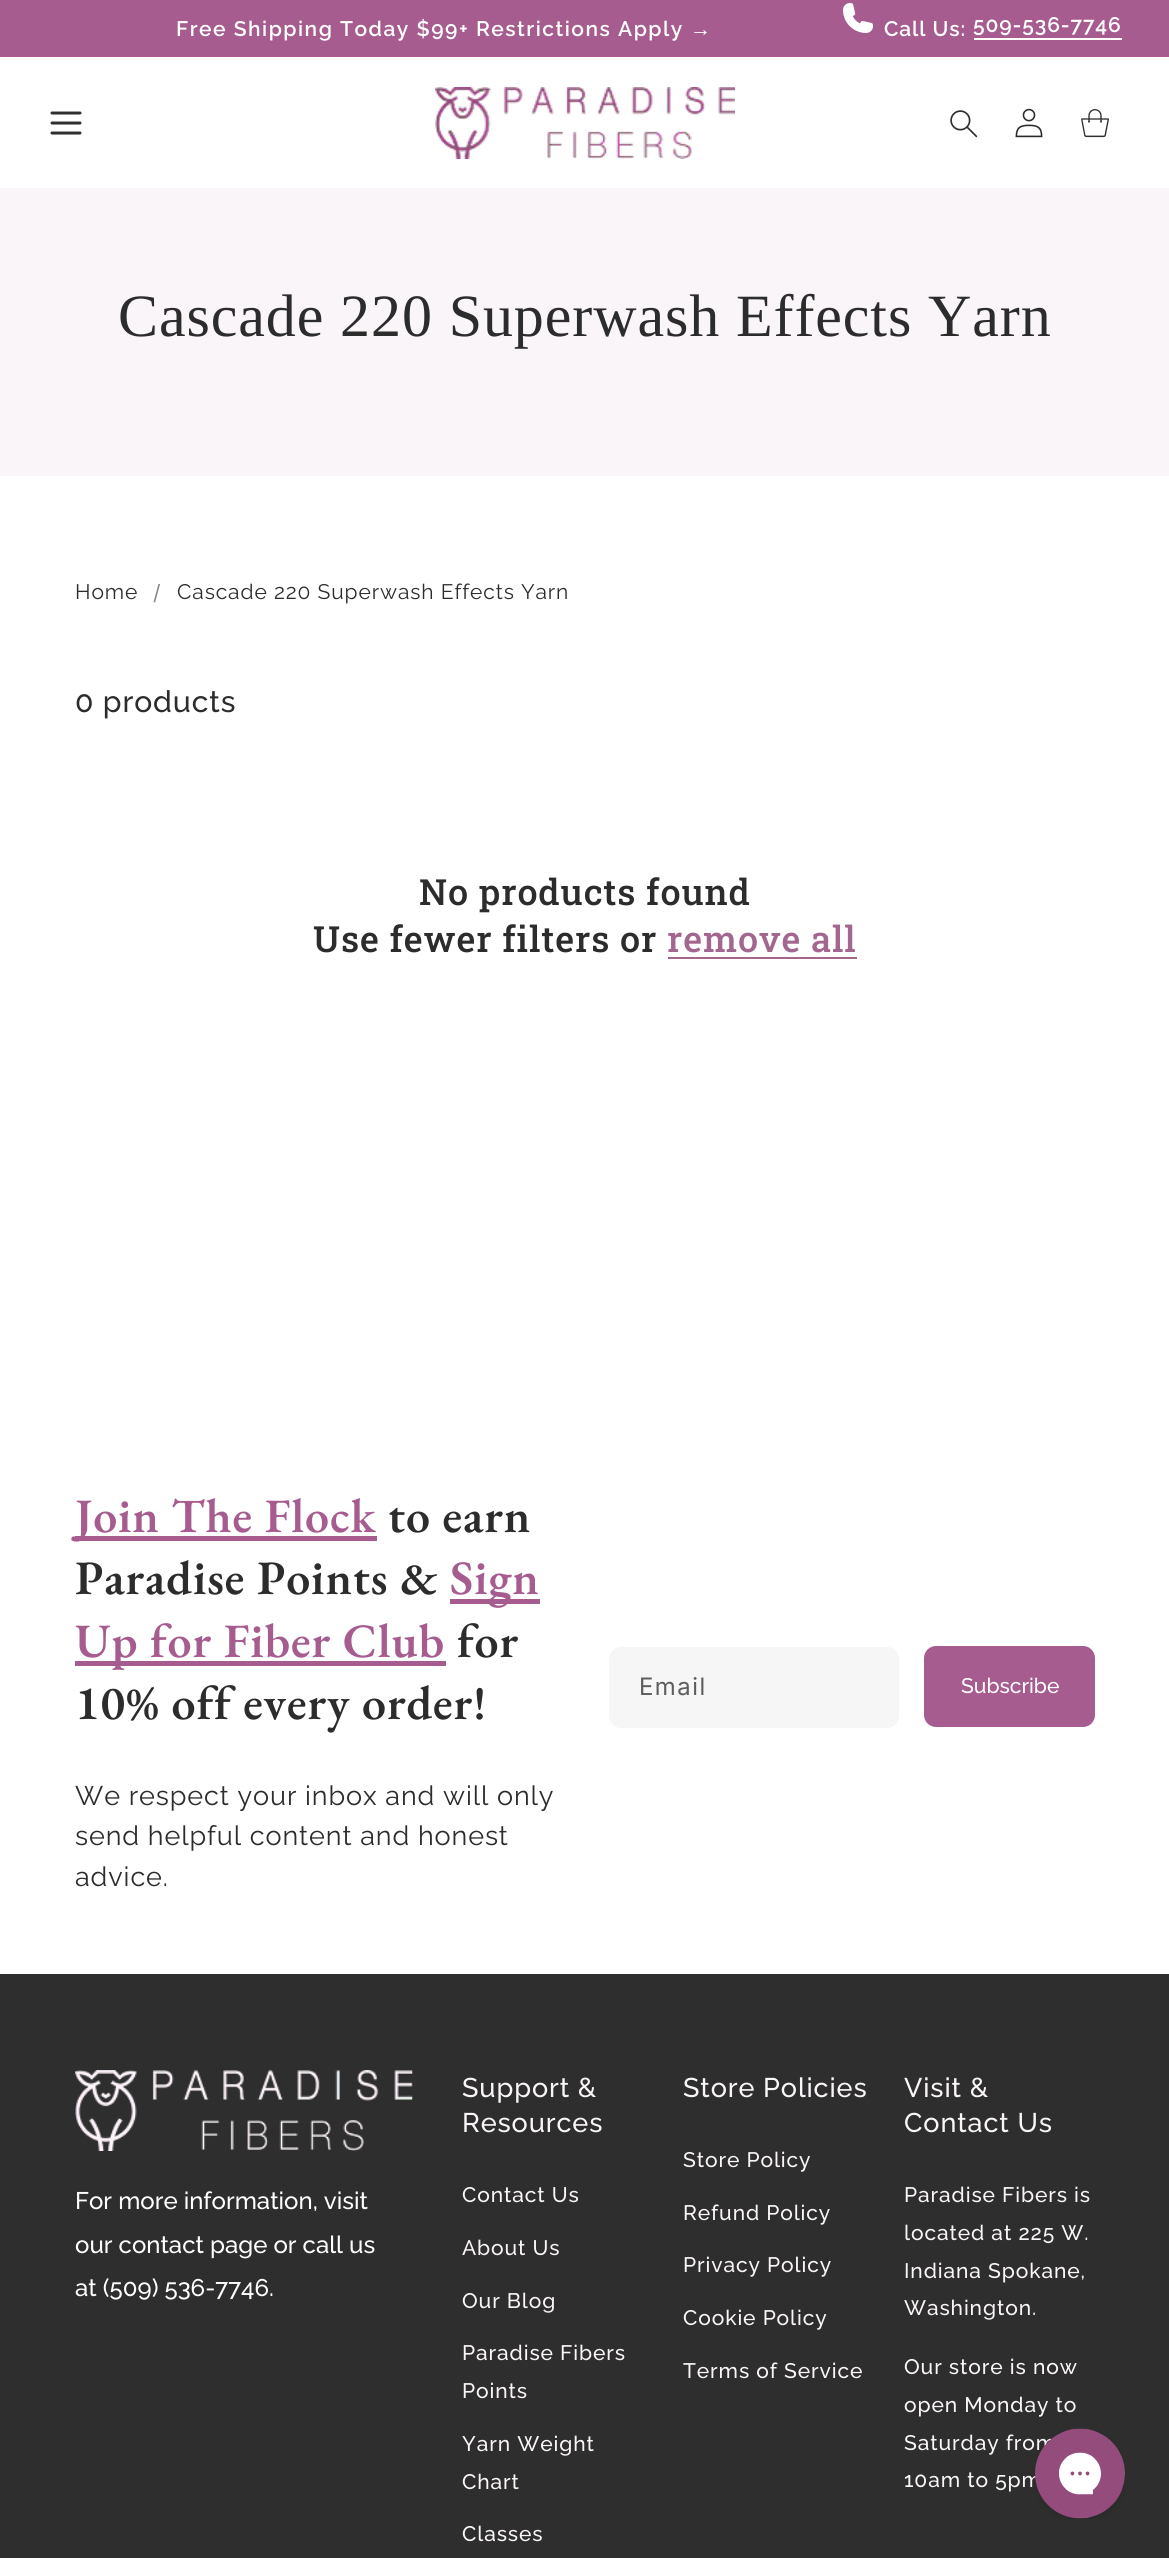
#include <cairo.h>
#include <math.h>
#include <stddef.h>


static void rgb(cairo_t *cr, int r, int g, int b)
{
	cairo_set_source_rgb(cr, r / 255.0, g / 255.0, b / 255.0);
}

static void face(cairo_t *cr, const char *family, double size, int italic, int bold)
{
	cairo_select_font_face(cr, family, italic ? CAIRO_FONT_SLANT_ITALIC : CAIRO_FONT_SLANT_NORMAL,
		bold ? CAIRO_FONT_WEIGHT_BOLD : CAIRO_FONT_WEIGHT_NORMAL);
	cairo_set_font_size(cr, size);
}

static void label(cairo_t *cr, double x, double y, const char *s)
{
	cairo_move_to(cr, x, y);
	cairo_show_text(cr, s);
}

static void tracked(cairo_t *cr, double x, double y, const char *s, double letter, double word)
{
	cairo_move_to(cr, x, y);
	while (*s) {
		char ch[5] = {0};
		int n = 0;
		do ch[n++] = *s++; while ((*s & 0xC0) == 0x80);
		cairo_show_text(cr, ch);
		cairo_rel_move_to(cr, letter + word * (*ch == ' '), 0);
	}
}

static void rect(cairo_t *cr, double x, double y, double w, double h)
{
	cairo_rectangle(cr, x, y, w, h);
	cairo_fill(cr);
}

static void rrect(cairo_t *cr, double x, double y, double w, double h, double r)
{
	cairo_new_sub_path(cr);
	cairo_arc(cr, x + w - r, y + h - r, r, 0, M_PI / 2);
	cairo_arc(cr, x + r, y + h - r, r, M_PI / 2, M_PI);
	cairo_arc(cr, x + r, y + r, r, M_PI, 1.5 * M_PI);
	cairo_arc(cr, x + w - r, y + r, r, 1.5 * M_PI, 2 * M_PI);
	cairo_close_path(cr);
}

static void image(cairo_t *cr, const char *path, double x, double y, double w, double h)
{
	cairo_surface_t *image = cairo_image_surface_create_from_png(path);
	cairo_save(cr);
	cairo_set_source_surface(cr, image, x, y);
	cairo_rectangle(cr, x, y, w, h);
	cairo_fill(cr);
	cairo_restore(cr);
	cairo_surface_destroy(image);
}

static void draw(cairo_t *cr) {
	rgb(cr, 255, 255, 255);
	cairo_paint(cr);
	rgb(cr, 166, 92, 143);
	rect(cr, 0, 0, 1169, 57);
	face(cr, "Raleway SemiBold", 21, 0, 0);
	rgb(cr, 255, 255, 255);
	tracked(cr, 176, 36, "Free Shipping Today $99+ Restrictions Apply", 1.5, 0);
	face(cr, "Liberation Serif", 21, 0, 1);
	tracked(cr, 690, 36, "→", 1.5, 0);
	image(cr, "image0.png", 843, 3, 30, 30);
	face(cr, "Raleway SemiBold", 21, 0, 0);
	tracked(cr, 884, 36, "Call Us:", 0.9, 0);
	tracked(cr, 973, 32, "509-536-7746", 0.9, 0);
	rect(cr, 974, 38, 148, 2);
	image(cr, "image1.png", 50, 111, 32, 24);
	image(cr, "image2.png", 435, 87, 300, 72);
	image(cr, "image3.png", 950, 110, 28, 28);
	image(cr, "image4.png", 1015, 108, 28, 30);
	image(cr, "image5.png", 1081, 109, 28, 29);
	rgb(cr, 250, 245, 249);
	rect(cr, 0, 188, 1169, 288);
	face(cr, "Liberation Serif", 60, 0, 0);
	rgb(cr, 44, 44, 44);
	tracked(cr, 118, 336, "Cascade 220 Superwash Effects Yarn", 0.9, 0);
	face(cr, "Raleway", 21, 0, 0);
	tracked(cr, 75, 599, "Home", 0.9, 0);
	face(cr, "Inter", 21, 0, 0);
	rgb(cr, 139, 138, 137);
	tracked(cr, 153, 600, "/", 0.9, 0);
	face(cr, "Raleway", 21, 0, 0);
	rgb(cr, 44, 44, 44);
	tracked(cr, 177, 599, "Cascade 220 Superwash Effects Yarn", 0.9, 0);
	face(cr, "Raleway Medium", 30, 0, 0);
	tracked(cr, 75, 712, "0 products", 0.9, 0);
	face(cr, "Roboto Slab Medium", 36, 0, 0);
	tracked(cr, 419, 905, "No products found", 0.9, 0);
	tracked(cr, 313, 952, "Use fewer filters or", 0.9, 0);
	rgb(cr, 163, 103, 143);
	tracked(cr, 667, 952, "remove all", 0.9, 0);
	rect(cr, 668, 957, 189, 2);
	rgb(cr, 166, 92, 143);
	rect(cr, 75, 1536, 302, 5);
	face(cr, "EB Garamond SemiBold", 48, 0, 0);
	tracked(cr, 75, 1532, "Join The Flock", 0.9, 0);
	rgb(cr, 44, 44, 44);
	tracked(cr, 388, 1532, "to earn", 0.9, 0);
	tracked(cr, 75, 1594, "Paradise Points &", 0.9, 0);
	rgb(cr, 166, 92, 143);
	rect(cr, 450, 1599, 90, 5);
	tracked(cr, 450, 1594, "Sign", 0.9, 0);
	rect(cr, 75, 1661, 371, 5);
	tracked(cr, 75, 1657, "Up for Fiber Club", 0.9, 0);
	rgb(cr, 44, 44, 44);
	tracked(cr, 457, 1657, "for", 0.9, 0);
	tracked(cr, 75, 1719, "10% off every order!", 0.9, 0);
	face(cr, "Raleway", 27, 0, 0);
	tracked(cr, 75, 1805, "We respect your inbox and will only", 0.9, 0);
	tracked(cr, 75, 1845, "send helpful content and honest", 0.9, 0);
	tracked(cr, 75, 1886, "advice.", 0.9, 0);
	rgb(cr, 246, 246, 246);
	rrect(cr, 609, 1647, 290, 81, 12);
	cairo_fill(cr);
	face(cr, "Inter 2", 24, 0, 0);
	rgb(cr, 95, 93, 92);
	tracked(cr, 639, 1695, "Email", 1.5, 0);
	rgb(cr, 166, 92, 143);
	rrect(cr, 924, 1646, 171, 81, 12);
	cairo_fill(cr);
	face(cr, "Raleway Medium", 21, 0, 0);
	rgb(cr, 255, 255, 255);
	label(cr, 961, 1693, "Subscribe");
	rgb(cr, 46, 46, 46);
	rect(cr, 0, 1974, 1169, 584);
	image(cr, "image6.png", 75, 2070, 338, 81);
	face(cr, "Raleway Medium", 24, 0, 0);
	rgb(cr, 255, 255, 255);
	label(cr, 75, 2209, "For more information, visit");
	label(cr, 75, 2253, "our contact page or call us");
	label(cr, 75, 2296, "at (509) 536-7746.");
	face(cr, "Raleway Medium", 27, 0, 0);
	rgb(cr, 250, 245, 249);
	tracked(cr, 462, 2097, "Support &", 0.9, 0);
	tracked(cr, 462, 2132, "Resources", 0.9, 0);
	face(cr, "Raleway Medium", 21, 0, 0);
	tracked(cr, 462, 2202, "Contact Us", 0.9, 0);
	tracked(cr, 462, 2255, "About Us", 0.9, 0);
	tracked(cr, 462, 2308, "Our Blog", 0.9, 0);
	tracked(cr, 462, 2360, "Paradise Fibers", 0.9, 0);
	tracked(cr, 462, 2398, "Points", 0.9, 0);
	tracked(cr, 462, 2451, "Yarn Weight", 0.9, 0);
	tracked(cr, 462, 2489, "Chart", 0.9, 0);
	tracked(cr, 462, 2541, "Classes", 0.9, 0);
	face(cr, "Raleway Medium", 27, 0, 0);
	tracked(cr, 683, 2097, "Store Policies", 0.9, 0);
	face(cr, "Raleway Medium", 21, 0, 0);
	tracked(cr, 683, 2167, "Store Policy", 0.9, 0);
	tracked(cr, 683, 2220, "Refund Policy", 0.9, 0);
	tracked(cr, 683, 2272, "Privacy Policy", 0.9, 0);
	tracked(cr, 683, 2325, "Cookie Policy", 0.9, 0);
	tracked(cr, 683, 2378, "Terms of Service", 0.9, 0);
	face(cr, "Raleway Medium", 27, 0, 0);
	tracked(cr, 904, 2097, "Visit &", 0.9, 0);
	tracked(cr, 904, 2132, "Contact Us", 0.9, 0);
	face(cr, "Raleway Medium", 21, 0, 0);
	tracked(cr, 904, 2202, "Paradise Fibers is", 0.9, 0);
	tracked(cr, 904, 2240, "located at 225 W.", 0.9, 0);
	tracked(cr, 904, 2278, "Indiana Spokane,", 0.9, 0);
	tracked(cr, 904, 2315, "Washington.", 0.9, 0);
	tracked(cr, 904, 2374, "Our store is now", 0.9, 0);
	tracked(cr, 904, 2412, "open Monday to", 0.9, 0);
	tracked(cr, 904, 2450, "Saturday from", 0.9, 0);
	tracked(cr, 904, 2487, "10am to 5pm", 0.9, 0);
	image(cr, "image7.png", 1032, 2428, 93, 91);
}

int main(void) {
	cairo_surface_t *surface = cairo_image_surface_create(CAIRO_FORMAT_RGB24, 1169, 2558);
	cairo_t *cr = cairo_create(surface);
	cairo_font_options_t *options = cairo_font_options_create();
	cairo_font_options_set_hint_metrics(options, CAIRO_HINT_METRICS_OFF);
	cairo_font_options_set_hint_style(options, CAIRO_HINT_STYLE_NONE);
	cairo_set_font_options(cr, options);
	cairo_set_miter_limit(cr, 4);
	draw(cr);
	cairo_surface_write_to_png(surface, "render.png");
	cairo_font_options_destroy(options);
	cairo_destroy(cr);
	cairo_surface_destroy(surface);
	return 0;
}
